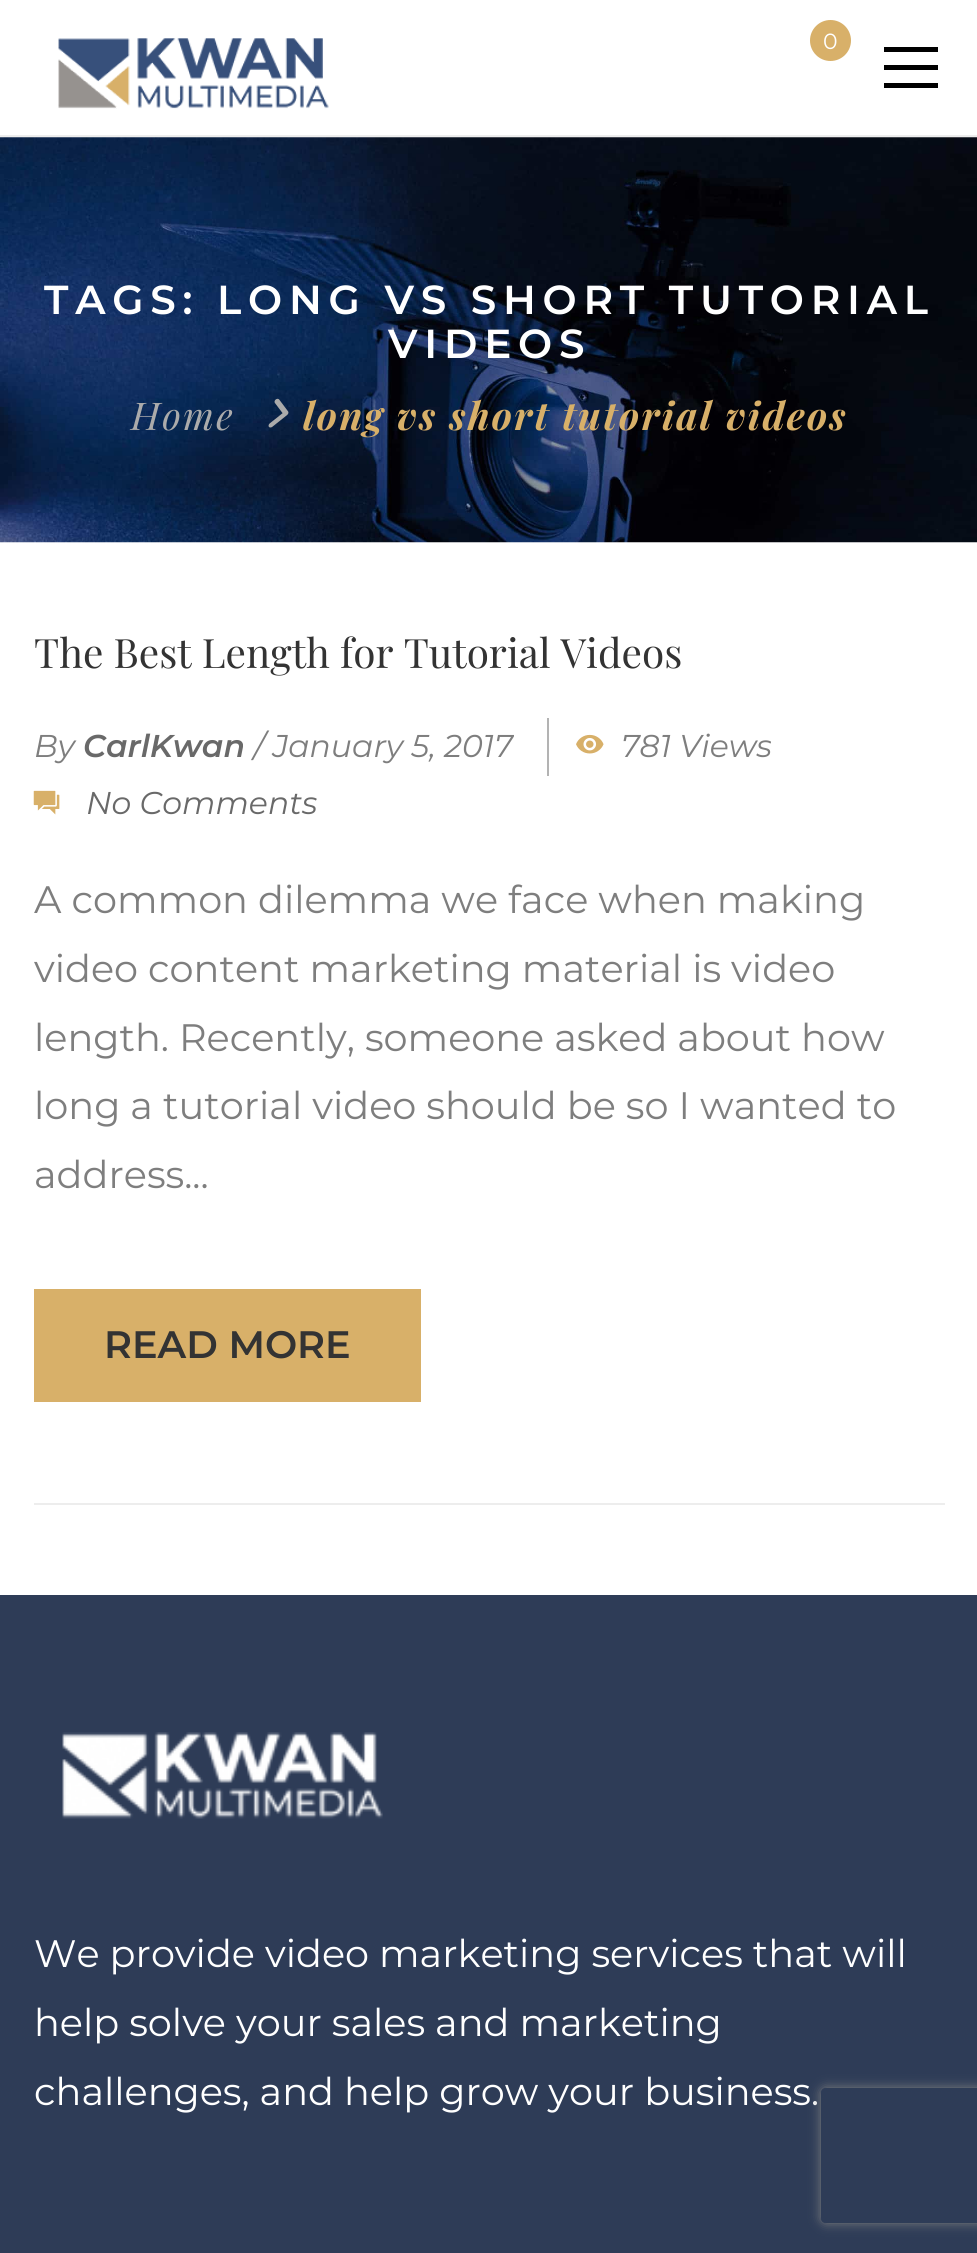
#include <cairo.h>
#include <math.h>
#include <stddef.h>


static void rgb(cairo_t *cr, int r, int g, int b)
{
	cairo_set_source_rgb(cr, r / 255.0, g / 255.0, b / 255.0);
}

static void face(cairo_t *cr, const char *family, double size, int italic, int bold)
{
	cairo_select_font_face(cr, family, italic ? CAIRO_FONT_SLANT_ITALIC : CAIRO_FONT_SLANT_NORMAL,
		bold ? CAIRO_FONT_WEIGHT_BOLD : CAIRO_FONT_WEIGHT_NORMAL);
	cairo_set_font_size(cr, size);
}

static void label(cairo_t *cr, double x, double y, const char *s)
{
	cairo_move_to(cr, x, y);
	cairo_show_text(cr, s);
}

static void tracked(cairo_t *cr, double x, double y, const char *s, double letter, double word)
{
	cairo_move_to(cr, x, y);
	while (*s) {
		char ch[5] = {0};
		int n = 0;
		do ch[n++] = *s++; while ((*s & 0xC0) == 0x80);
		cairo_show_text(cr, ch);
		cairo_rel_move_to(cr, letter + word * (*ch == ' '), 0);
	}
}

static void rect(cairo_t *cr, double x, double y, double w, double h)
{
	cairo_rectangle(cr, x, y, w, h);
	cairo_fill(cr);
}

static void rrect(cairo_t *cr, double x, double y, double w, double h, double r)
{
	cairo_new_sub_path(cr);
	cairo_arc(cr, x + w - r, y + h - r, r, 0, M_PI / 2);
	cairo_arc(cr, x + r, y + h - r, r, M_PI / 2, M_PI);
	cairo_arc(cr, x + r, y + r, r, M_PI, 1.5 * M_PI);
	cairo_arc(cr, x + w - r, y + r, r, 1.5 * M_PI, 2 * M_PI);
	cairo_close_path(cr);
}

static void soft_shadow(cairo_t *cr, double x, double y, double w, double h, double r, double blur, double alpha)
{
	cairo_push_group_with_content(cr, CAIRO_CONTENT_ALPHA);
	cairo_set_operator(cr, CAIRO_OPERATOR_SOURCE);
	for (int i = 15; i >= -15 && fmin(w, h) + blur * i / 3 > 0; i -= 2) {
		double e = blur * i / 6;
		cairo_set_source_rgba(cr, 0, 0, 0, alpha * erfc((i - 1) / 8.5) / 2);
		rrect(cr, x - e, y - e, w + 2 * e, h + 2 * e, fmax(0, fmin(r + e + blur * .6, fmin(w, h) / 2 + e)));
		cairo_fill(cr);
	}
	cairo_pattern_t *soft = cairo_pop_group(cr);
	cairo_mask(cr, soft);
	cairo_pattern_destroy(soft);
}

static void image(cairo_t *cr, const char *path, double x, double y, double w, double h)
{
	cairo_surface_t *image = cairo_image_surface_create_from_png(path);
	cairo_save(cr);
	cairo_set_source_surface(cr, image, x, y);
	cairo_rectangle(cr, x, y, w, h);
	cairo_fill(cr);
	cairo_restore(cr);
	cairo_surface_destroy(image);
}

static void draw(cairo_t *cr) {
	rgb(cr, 255, 255, 255);
	cairo_paint(cr);
	rgb(cr, 237, 237, 237);
	rect(cr, 0, 135, 977, 2);
	image(cr, "image0.png", 58, 38, 271, 71);
	rgb(cr, 216, 176, 105);
	cairo_arc(cr, 830.5, 40.5, 20.5, 0, 2 * M_PI);
	cairo_fill(cr);
	face(cr, "Montserrat", 22, 0, 0);
	rgb(cr, 255, 255, 255);
	label(cr, 823, 49, "0");
	rgb(cr, 0, 0, 0);
	rect(cr, 884, 47, 54, 5);
	rect(cr, 884, 65, 54, 5);
	rect(cr, 884, 83, 54, 5);
	image(cr, "image1.png", 0, 137, 977, 406);
	face(cr, "Montserrat SemiBold", 40.5, 0, 0);
	rgb(cr, 255, 255, 255);
	tracked(cr, 44, 314, "TAGS: LONG VS SHORT TUTORIAL", 6.75, 0);
	tracked(cr, 388, 358, "VIDEOS", 6.75, 0);
	face(cr, "Playfair Display", 38.25, 1, 0);
	rgb(cr, 171, 171, 171);
	tracked(cr, 131, 430, "Home", 2.25, 0);
	image(cr, "image2.png", 268, 398, 21, 30);
	face(cr, "Playfair Display", 38.25, 1, 1);
	rgb(cr, 216, 176, 105);
	tracked(cr, 303, 430, "long vs short tutorial videos", 2.25, 0);
	rgb(cr, 237, 237, 237);
	rect(cr, 34, 1503, 911, 2);
	face(cr, "Playfair Display", 40.5, 0, 0);
	rgb(cr, 51, 51, 51);
	label(cr, 34, 668, "The Best Length for Tutorial Videos");
	face(cr, "Montserrat", 31.5, 1, 0);
	rgb(cr, 126, 126, 126);
	label(cr, 34, 757, "By");
	face(cr, "Montserrat SemiBold", 31.5, 1, 0);
	rgb(cr, 105, 105, 105);
	label(cr, 83, 757, "CarlKwan");
	face(cr, "Montserrat", 31.5, 1, 0);
	rgb(cr, 126, 126, 126);
	label(cr, 254, 757, "/ January 5, 2017");
	rgb(cr, 179, 179, 179);
	rect(cr, 547, 718, 2, 58);
	image(cr, "image3.png", 576, 734, 28, 20);
	rgb(cr, 126, 126, 126);
	label(cr, 621, 757, "781 Views");
	image(cr, "image4.png", 33, 790, 27, 25);
	rgb(cr, 105, 105, 105);
	label(cr, 86, 814, "No Comments");
	face(cr, "Montserrat", 38.25, 0, 0);
	rgb(cr, 126, 126, 126);
	label(cr, 34, 913, "A common dilemma we face when making");
	label(cr, 34, 982, "video content marketing material is video");
	label(cr, 34, 1051, "length. Recently, someone asked about how");
	label(cr, 34, 1119, "long a tutorial video should be so I wanted to");
	label(cr, 34, 1188, "address...");
	rgb(cr, 216, 176, 105);
	rect(cr, 34, 1289, 387, 113);
	face(cr, "Montserrat SemiBold", 38.25, 0, 0);
	rgb(cr, 51, 51, 51);
	label(cr, 104, 1358, "READ MORE");
	rgb(cr, 46, 60, 87);
	rect(cr, 0, 1595, 977, 658);
	image(cr, "image5.png", 62, 1732, 321, 87);
	face(cr, "Montserrat", 38.25, 0, 0);
	rgb(cr, 255, 255, 255);
	label(cr, 34, 1967, "We provide video marketing services that will");
	label(cr, 34, 2036, "help solve your sales and marketing");
	label(cr, 34, 2105, "challenges, and help grow your business.");
	cairo_save(cr);
	cairo_set_fill_rule(cr, CAIRO_FILL_RULE_EVEN_ODD);
	cairo_new_path(cr);
	cairo_move_to(cr, 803, 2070);
	cairo_line_to(cr, 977, 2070);
	cairo_line_to(cr, 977, 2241);
	cairo_line_to(cr, 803, 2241);
	cairo_close_path(cr);
	cairo_move_to(cr, 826, 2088);
	cairo_line_to(cr, 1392, 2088);
	cairo_curve_to(cr, 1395, 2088, 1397, 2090, 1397, 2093);
	cairo_line_to(cr, 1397, 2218);
	cairo_curve_to(cr, 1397, 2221, 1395, 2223, 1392, 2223);
	cairo_line_to(cr, 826, 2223);
	cairo_curve_to(cr, 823, 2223, 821, 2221, 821, 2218);
	cairo_line_to(cr, 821, 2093);
	cairo_curve_to(cr, 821, 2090, 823, 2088, 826, 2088);
	cairo_close_path(cr);
	cairo_clip(cr);
	rgb(cr, 128, 128, 128);
	soft_shadow(cr, 821, 2088, 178, 135, 5, 5.5, 1);
	cairo_restore(cr);
}

int main(void) {
	cairo_surface_t *surface = cairo_image_surface_create(CAIRO_FORMAT_RGB24, 977, 2253);
	cairo_t *cr = cairo_create(surface);
	cairo_font_options_t *options = cairo_font_options_create();
	cairo_font_options_set_hint_metrics(options, CAIRO_HINT_METRICS_OFF);
	cairo_font_options_set_hint_style(options, CAIRO_HINT_STYLE_NONE);
	cairo_set_font_options(cr, options);
	cairo_set_miter_limit(cr, 4);
	draw(cr);
	cairo_surface_write_to_png(surface, "render.png");
	cairo_font_options_destroy(options);
	cairo_destroy(cr);
	cairo_surface_destroy(surface);
	return 0;
}
